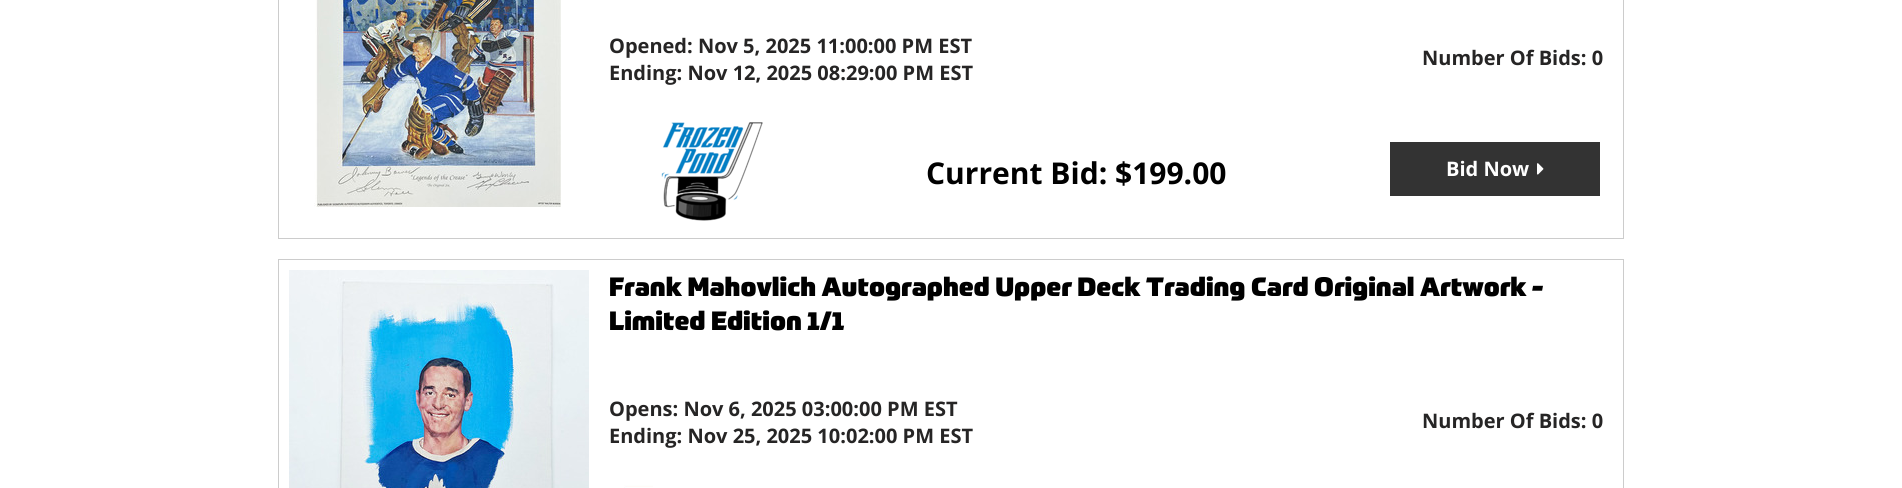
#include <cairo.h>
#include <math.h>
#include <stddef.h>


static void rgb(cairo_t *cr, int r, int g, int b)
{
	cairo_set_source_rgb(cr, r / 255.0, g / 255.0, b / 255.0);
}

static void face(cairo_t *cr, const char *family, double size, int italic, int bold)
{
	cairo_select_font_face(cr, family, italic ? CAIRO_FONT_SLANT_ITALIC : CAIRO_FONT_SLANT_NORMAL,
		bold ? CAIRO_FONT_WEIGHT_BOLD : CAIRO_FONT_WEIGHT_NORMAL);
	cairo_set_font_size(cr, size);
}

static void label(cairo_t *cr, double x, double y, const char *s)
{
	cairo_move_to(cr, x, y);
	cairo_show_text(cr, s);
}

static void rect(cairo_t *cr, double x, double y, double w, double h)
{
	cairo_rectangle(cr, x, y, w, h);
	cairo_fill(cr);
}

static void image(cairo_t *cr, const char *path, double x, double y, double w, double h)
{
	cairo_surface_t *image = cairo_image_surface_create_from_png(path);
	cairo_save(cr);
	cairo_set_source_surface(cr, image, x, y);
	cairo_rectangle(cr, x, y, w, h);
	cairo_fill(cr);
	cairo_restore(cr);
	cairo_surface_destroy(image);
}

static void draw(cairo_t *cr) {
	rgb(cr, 255, 255, 255);
	cairo_paint(cr);
	cairo_rectangle(cr, 278.5, -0.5, 1345, 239);
	rgb(cr, 204, 204, 204);
	cairo_set_line_width(cr, 1);
	cairo_stroke(cr);
	image(cr, "image0.png", 314, 0, 247, 207);
	face(cr, "Open Sans", 20, 0, 1);
	rgb(cr, 38, 37, 37);
	label(cr, 609, 53, "Opened: Nov 5, 2025 11:00:00 PM EST");
	label(cr, 609, 80, "Ending: Nov 12, 2025 08:29:00 PM EST");
	label(cr, 1422, 65, "Number Of Bids: 0");
	image(cr, "image1.png", 661, 122, 102, 99);
	face(cr, "Open Sans", 30, 0, 1);
	rgb(cr, 0, 0, 0);
	label(cr, 926, 184, "Current Bid: $199.00");
	rgb(cr, 51, 51, 51);
	rect(cr, 1390, 142, 210, 54);
	face(cr, "Open Sans", 20, 0, 1);
	rgb(cr, 255, 255, 255);
	label(cr, 1446, 176, "Bid Now");
	image(cr, "image2.png", 1537, 163, 7, 12);
	cairo_rectangle(cr, 278.5, 259.5, 1345, 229);
	rgb(cr, 204, 204, 204);
	cairo_stroke(cr);
	image(cr, "image3.png", 289, 270, 300, 218);
	face(cr, "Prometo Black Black", 26, 0, 0);
	rgb(cr, 0, 0, 0);
	label(cr, 609, 296, "Frank Mahovlich Autographed Upper Deck Trading Card Original Artwork -");
	label(cr, 609, 330, "Limited Edition 1/1");
	face(cr, "Open Sans", 20, 0, 1);
	rgb(cr, 38, 37, 37);
	label(cr, 609, 416, "Opens: Nov 6, 2025 03:00:00 PM EST");
	label(cr, 609, 443, "Ending: Nov 25, 2025 10:02:00 PM EST");
	label(cr, 1422, 428, "Number Of Bids: 0");
	image(cr, "image4.png", 624, 485, 29, 3);
}

int main(void) {
	cairo_surface_t *surface = cairo_image_surface_create(CAIRO_FORMAT_RGB24, 1902, 488);
	cairo_t *cr = cairo_create(surface);
	cairo_font_options_t *options = cairo_font_options_create();
	cairo_font_options_set_hint_metrics(options, CAIRO_HINT_METRICS_OFF);
	cairo_font_options_set_hint_style(options, CAIRO_HINT_STYLE_NONE);
	cairo_set_font_options(cr, options);
	cairo_set_miter_limit(cr, 4);
	draw(cr);
	cairo_surface_write_to_png(surface, "render.png");
	cairo_font_options_destroy(options);
	cairo_destroy(cr);
	cairo_surface_destroy(surface);
	return 0;
}
